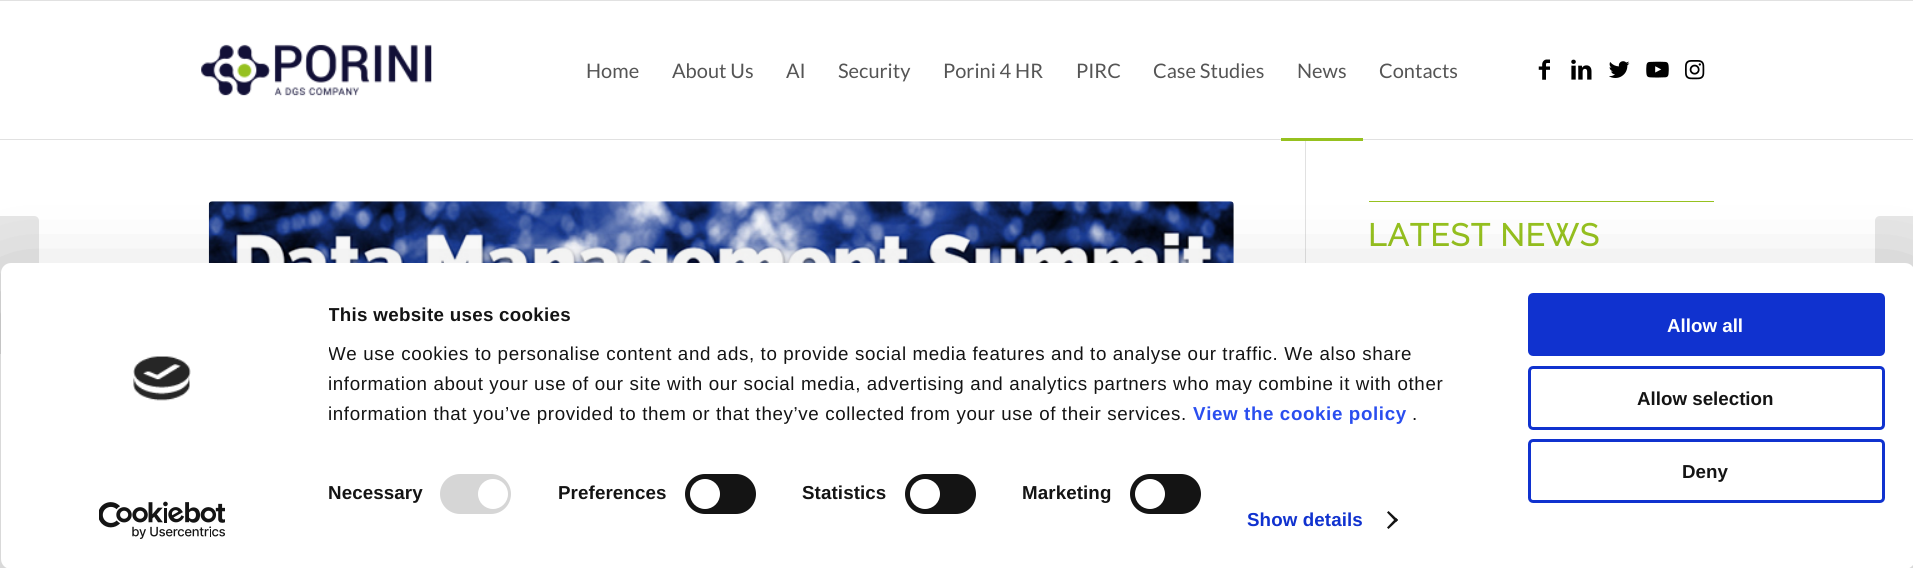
#include <cairo.h>
#include <math.h>
#include <stddef.h>


static void rgb(cairo_t *cr, int r, int g, int b)
{
	cairo_set_source_rgb(cr, r / 255.0, g / 255.0, b / 255.0);
}

static void face(cairo_t *cr, const char *family, double size, int italic, int bold)
{
	cairo_select_font_face(cr, family, italic ? CAIRO_FONT_SLANT_ITALIC : CAIRO_FONT_SLANT_NORMAL,
		bold ? CAIRO_FONT_WEIGHT_BOLD : CAIRO_FONT_WEIGHT_NORMAL);
	cairo_set_font_size(cr, size);
}

static void label(cairo_t *cr, double x, double y, const char *s)
{
	cairo_move_to(cr, x, y);
	cairo_show_text(cr, s);
}

static void tracked(cairo_t *cr, double x, double y, const char *s, double letter, double word)
{
	cairo_move_to(cr, x, y);
	while (*s) {
		char ch[5] = {0};
		int n = 0;
		do ch[n++] = *s++; while ((*s & 0xC0) == 0x80);
		cairo_show_text(cr, ch);
		cairo_rel_move_to(cr, letter + word * (*ch == ' '), 0);
	}
}

static void rect(cairo_t *cr, double x, double y, double w, double h)
{
	cairo_rectangle(cr, x, y, w, h);
	cairo_fill(cr);
}

static void rrect(cairo_t *cr, double x, double y, double w, double h, double r)
{
	cairo_new_sub_path(cr);
	cairo_arc(cr, x + w - r, y + h - r, r, 0, M_PI / 2);
	cairo_arc(cr, x + r, y + h - r, r, M_PI / 2, M_PI);
	cairo_arc(cr, x + r, y + r, r, M_PI, 1.5 * M_PI);
	cairo_arc(cr, x + w - r, y + r, r, 1.5 * M_PI, 2 * M_PI);
	cairo_close_path(cr);
}

static void soft_shadow(cairo_t *cr, double x, double y, double w, double h, double r, double blur, double alpha)
{
	cairo_push_group_with_content(cr, CAIRO_CONTENT_ALPHA);
	cairo_set_operator(cr, CAIRO_OPERATOR_SOURCE);
	for (int i = 15; i >= -15 && fmin(w, h) + blur * i / 3 > 0; i -= 2) {
		double e = blur * i / 6;
		cairo_set_source_rgba(cr, 0, 0, 0, alpha * erfc((i - 1) / 8.5) / 2);
		rrect(cr, x - e, y - e, w + 2 * e, h + 2 * e, fmax(0, fmin(r + e + blur * .6, fmin(w, h) / 2 + e)));
		cairo_fill(cr);
	}
	cairo_pattern_t *soft = cairo_pop_group(cr);
	cairo_mask(cr, soft);
	cairo_pattern_destroy(soft);
}

static void image(cairo_t *cr, const char *path, double x, double y, double w, double h)
{
	cairo_surface_t *image = cairo_image_surface_create_from_png(path);
	cairo_save(cr);
	cairo_set_source_surface(cr, image, x, y);
	cairo_rectangle(cr, x, y, w, h);
	cairo_fill(cr);
	cairo_restore(cr);
	cairo_surface_destroy(image);
}

static void draw(cairo_t *cr) {
	rgb(cr, 255, 255, 255);
	cairo_paint(cr);
	rgb(cr, 225, 225, 225);
	rect(cr, 0, 0, 1913, 1);
	rect(cr, 1305, 139, 1, 124);
	rect(cr, 0, 139, 1913, 1);
	image(cr, "image0.png", 201, 44, 231, 52);
	face(cr, "Lato", 20, 0, 0);
	rgb(cr, 85, 85, 85);
	label(cr, 586, 78, "Home");
	label(cr, 672, 78, "About Us");
	label(cr, 786, 78, "AI");
	label(cr, 838, 78, "Security");
	label(cr, 943, 78, "Porini 4 HR");
	label(cr, 1076, 78, "PIRC");
	label(cr, 1153, 78, "Case Studies");
	label(cr, 1297, 78, "News");
	rgb(cr, 150, 193, 31);
	rect(cr, 1281, 138, 82, 3);
	rgb(cr, 85, 85, 85);
	label(cr, 1379, 78, "Contacts");
	image(cr, "image1.png", 1538, 59, 12, 21);
	image(cr, "image2.png", 1571, 59, 21, 21);
	image(cr, "image3.png", 1609, 61, 21, 17);
	image(cr, "image4.png", 1646, 61, 23, 17);
	image(cr, "image5.png", 1685, 60, 20, 20);
	image(cr, "image6.png", 208, 201, 1026, 62);
	rgb(cr, 150, 193, 31);
	rect(cr, 1369, 201, 345, 1);
	face(cr, "Raleway", 31.25, 0, 1);
	tracked(cr, 1368, 246, "LATEST NEWS", 1.25, 0);
	rgb(cr, 230, 230, 230);
	cairo_new_path(cr);
	cairo_move_to(cr, 0, 216);
	cairo_line_to(cr, 34, 216);
	cairo_curve_to(cr, 37, 216, 39, 218, 39, 221);
	cairo_line_to(cr, 39, 349);
	cairo_curve_to(cr, 39, 352, 37, 354, 34, 354);
	cairo_line_to(cr, 0, 354);
	cairo_close_path(cr);
	cairo_fill(cr);
	cairo_new_path(cr);
	cairo_move_to(cr, 1880, 216);
	cairo_line_to(cr, 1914, 216);
	cairo_line_to(cr, 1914, 354);
	cairo_line_to(cr, 1880, 354);
	cairo_curve_to(cr, 1877, 354, 1875, 352, 1875, 349);
	cairo_line_to(cr, 1875, 221);
	cairo_curve_to(cr, 1875, 218, 1877, 216, 1880, 216);
	cairo_close_path(cr);
	cairo_fill(cr);
	rgb(cr, 0, 0, 0);
	soft_shadow(cr, 1, 300, 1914, 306, 10, 44, 0.3);
	rgb(cr, 255, 255, 255);
	rrect(cr, 1, 263, 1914, 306, 10);
	cairo_fill(cr);
	image(cr, "image7.png", 133, 356, 58, 45);
	image(cr, "image8.png", 99, 501, 126, 38);
	cairo_save(cr);
	cairo_rectangle(cr, 329, 300, 1162, 129);
	cairo_clip(cr);
	face(cr, "Liberation Sans", 18.75, 0, 1);
	rgb(cr, 20, 20, 20);
	tracked(cr, 328, 321, "This website uses cookies", 0.3, 0);
	face(cr, "Liberation Sans", 18.75, 0, 0);
	tracked(cr, 328, 360, "We use cookies to personalise content and ads, to provide social media features and to analyse our traffic. We also share", 0.62, 0);
	tracked(cr, 328, 390, "information about your use of our site with our social media, advertising and analytics partners who may combine it with other", 0.62, 0);
	tracked(cr, 328, 420, "information that you’ve provided to them or that they’ve collected from your use of their services.", 0.62, 0);
	cairo_restore(cr);
	face(cr, "Liberation Sans", 18.75, 0, 1);
	rgb(cr, 42, 78, 239);
	tracked(cr, 1193, 420, "View the cookie policy", 0.62, 0);
	face(cr, "Liberation Sans", 18.75, 0, 0);
	rgb(cr, 20, 20, 20);
	tracked(cr, 1412, 420, ".", 0.62, 0);
	face(cr, "Liberation Sans", 18.75, 0, 1);
	tracked(cr, 328, 499, "Necessary", 0.1, 0);
	rgb(cr, 214, 214, 214);
	rrect(cr, 440, 474, 71, 40, 20);
	cairo_fill(cr);
	rgb(cr, 255, 255, 255);
	cairo_arc(cr, 493, 494, 15, 0, 2 * M_PI);
	cairo_fill(cr);
	rgb(cr, 20, 20, 20);
	tracked(cr, 558, 499, "Preferences", 0.1, 0);
	rrect(cr, 685, 474, 71, 40, 20);
	cairo_fill(cr);
	rgb(cr, 255, 255, 255);
	cairo_arc(cr, 705, 494, 15, 0, 2 * M_PI);
	cairo_fill(cr);
	rgb(cr, 20, 20, 20);
	tracked(cr, 802, 499, "Statistics", 0.1, 0);
	rrect(cr, 905, 474, 71, 40, 20);
	cairo_fill(cr);
	rgb(cr, 255, 255, 255);
	cairo_arc(cr, 925, 494, 15, 0, 2 * M_PI);
	cairo_fill(cr);
	rgb(cr, 20, 20, 20);
	tracked(cr, 1022, 499, "Marketing", 0.1, 0);
	rrect(cr, 1130, 474, 71, 40, 20);
	cairo_fill(cr);
	rgb(cr, 255, 255, 255);
	cairo_arc(cr, 1150, 494, 15, 0, 2 * M_PI);
	cairo_fill(cr);
	rgb(cr, 16, 50, 207);
	tracked(cr, 1247, 526, "Show details", 0.1, 0);
	rgb(cr, 20, 20, 20);
	cairo_new_path(cr);
	cairo_move_to(cr, 1388.5, 511);
	cairo_line_to(cr, 1398, 520);
	cairo_line_to(cr, 1396, 522);
	cairo_line_to(cr, 1387, 512.5);
	cairo_close_path(cr);
	cairo_fill(cr);
	cairo_new_path(cr);
	cairo_move_to(cr, 1396, 518);
	cairo_line_to(cr, 1398, 520);
	cairo_line_to(cr, 1388.5, 529);
	cairo_line_to(cr, 1387, 527.5);
	cairo_close_path(cr);
	cairo_fill(cr);
	rgb(cr, 16, 50, 207);
	rrect(cr, 1529.5, 294.5, 354, 60, 3.5);
	cairo_fill_preserve(cr);
	cairo_set_line_width(cr, 3);
	cairo_stroke(cr);
	rgb(cr, 255, 255, 255);
	label(cr, 1667, 332, "Allow all");
	rrect(cr, 1529.5, 367.5, 354, 61, 3.5);
	rgb(cr, 16, 50, 207);
	cairo_stroke(cr);
	rgb(cr, 20, 20, 20);
	label(cr, 1637, 405, "Allow selection");
	rrect(cr, 1529.5, 440.5, 354, 61, 3.5);
	rgb(cr, 16, 50, 207);
	cairo_stroke(cr);
	rgb(cr, 20, 20, 20);
	label(cr, 1682, 478, "Deny");
}

int main(void) {
	cairo_surface_t *surface = cairo_image_surface_create(CAIRO_FORMAT_RGB24, 1913, 568);
	cairo_t *cr = cairo_create(surface);
	cairo_font_options_t *options = cairo_font_options_create();
	cairo_font_options_set_hint_metrics(options, CAIRO_HINT_METRICS_OFF);
	cairo_font_options_set_hint_style(options, CAIRO_HINT_STYLE_NONE);
	cairo_set_font_options(cr, options);
	cairo_set_miter_limit(cr, 4);
	draw(cr);
	cairo_surface_write_to_png(surface, "render.png");
	cairo_font_options_destroy(options);
	cairo_destroy(cr);
	cairo_surface_destroy(surface);
	return 0;
}
